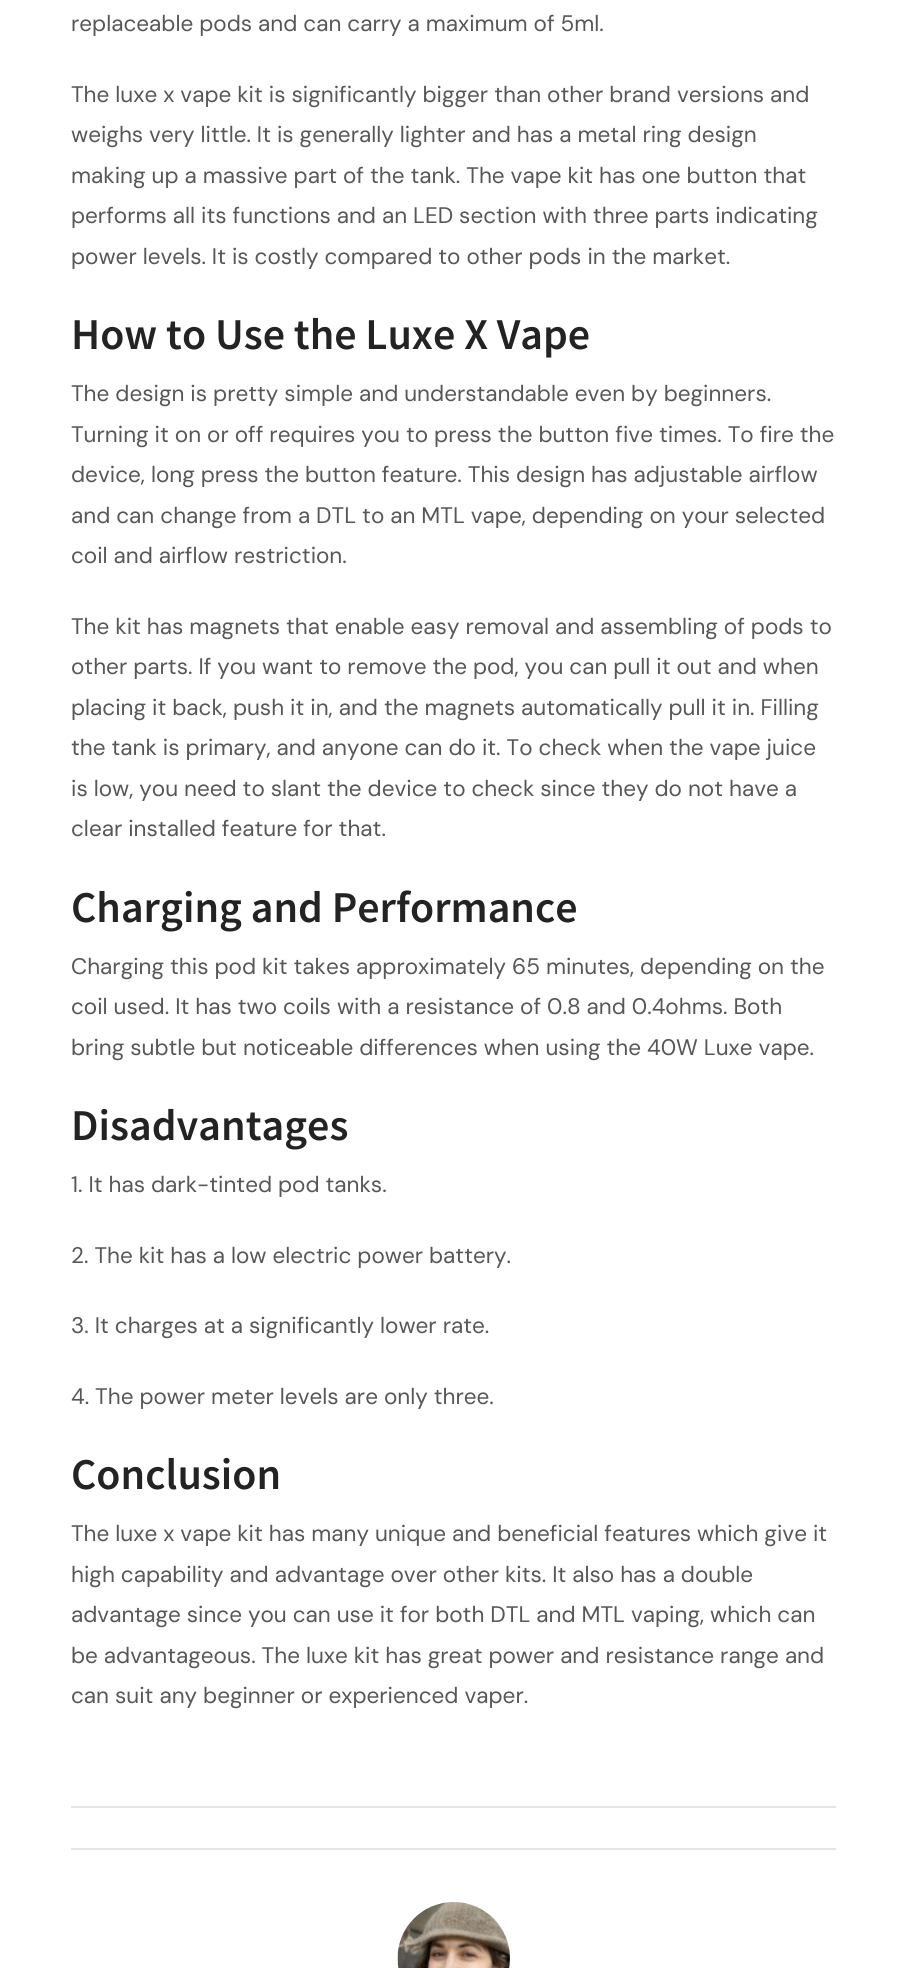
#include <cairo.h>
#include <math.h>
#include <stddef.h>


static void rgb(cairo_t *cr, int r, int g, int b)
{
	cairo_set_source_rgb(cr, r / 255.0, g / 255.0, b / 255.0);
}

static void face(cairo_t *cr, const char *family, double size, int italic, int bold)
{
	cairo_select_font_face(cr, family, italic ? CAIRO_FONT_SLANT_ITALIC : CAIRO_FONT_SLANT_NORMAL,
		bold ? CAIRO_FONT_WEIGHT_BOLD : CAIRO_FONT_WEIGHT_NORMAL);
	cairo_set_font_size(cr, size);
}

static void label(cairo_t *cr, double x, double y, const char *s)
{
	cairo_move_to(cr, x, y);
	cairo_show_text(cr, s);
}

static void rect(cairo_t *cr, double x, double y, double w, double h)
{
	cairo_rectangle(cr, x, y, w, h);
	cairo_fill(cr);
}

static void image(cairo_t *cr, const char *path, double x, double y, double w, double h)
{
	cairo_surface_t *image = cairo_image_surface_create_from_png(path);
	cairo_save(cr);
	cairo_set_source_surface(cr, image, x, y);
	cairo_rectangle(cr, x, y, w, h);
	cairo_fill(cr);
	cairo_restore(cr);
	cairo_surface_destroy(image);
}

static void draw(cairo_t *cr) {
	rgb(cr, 255, 255, 255);
	cairo_paint(cr);
	face(cr, "DM Sans", 22.5, 0, 0);
	rgb(cr, 87, 87, 87);
	label(cr, 71, 31, "replaceable pods and can carry a maximum of 5ml.");
	label(cr, 71, 102, "The luxe x vape kit is significantly bigger than other brand versions and");
	label(cr, 71, 142, "weighs very little. It is generally lighter and has a metal ring design");
	label(cr, 71, 183, "making up a massive part of the tank. The vape kit has one button that");
	label(cr, 71, 223, "performs all its functions and an LED section with three parts indicating");
	label(cr, 71, 264, "power levels. It is costly compared to other pods in the market.");
	face(cr, "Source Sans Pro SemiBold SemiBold", 44, 0, 0);
	rgb(cr, 35, 35, 35);
	label(cr, 71, 349, "How to Use the Luxe X Vape");
	face(cr, "DM Sans", 22.5, 0, 0);
	rgb(cr, 87, 87, 87);
	label(cr, 71, 401, "The design is pretty simple and understandable even by beginners.");
	label(cr, 71, 442, "Turning it on or off requires you to press the button five times. To fire the");
	label(cr, 71, 482, "device, long press the button feature. This design has adjustable airflow");
	label(cr, 71, 523, "and can change from a DTL to an MTL vape, depending on your selected");
	label(cr, 71, 563, "coil and airflow restriction.");
	label(cr, 71, 634, "The kit has magnets that enable easy removal and assembling of pods to");
	label(cr, 71, 674, "other parts. If you want to remove the pod, you can pull it out and when");
	label(cr, 71, 715, "placing it back, push it in, and the magnets automatically pull it in. Filling");
	label(cr, 71, 755, "the tank is primary, and anyone can do it. To check when the vape juice");
	label(cr, 71, 796, "is low, you need to slant the device to check since they do not have a");
	label(cr, 71, 836, "clear installed feature for that.");
	face(cr, "Source Sans Pro SemiBold SemiBold", 44, 0, 0);
	rgb(cr, 35, 35, 35);
	label(cr, 71, 922, "Charging and Performance");
	face(cr, "DM Sans", 22.5, 0, 0);
	rgb(cr, 87, 87, 87);
	label(cr, 71, 974, "Charging this pod kit takes approximately 65 minutes, depending on the");
	label(cr, 71, 1014, "coil used. It has two coils with a resistance of 0.8 and 0.4ohms. Both");
	label(cr, 71, 1055, "bring subtle but noticeable differences when using the 40W Luxe vape.");
	face(cr, "Source Sans Pro SemiBold SemiBold", 44, 0, 0);
	rgb(cr, 35, 35, 35);
	label(cr, 71, 1140, "Disadvantages");
	face(cr, "DM Sans", 22.5, 0, 0);
	rgb(cr, 87, 87, 87);
	label(cr, 71, 1192, "1. It has dark-tinted pod tanks.");
	label(cr, 71, 1263, "2. The kit has a low electric power battery.");
	label(cr, 71, 1333, "3. It charges at a significantly lower rate.");
	label(cr, 71, 1404, "4. The power meter levels are only three.");
	face(cr, "Source Sans Pro SemiBold SemiBold", 44, 0, 0);
	rgb(cr, 35, 35, 35);
	label(cr, 71, 1489, "Conclusion");
	face(cr, "DM Sans", 22.5, 0, 0);
	rgb(cr, 87, 87, 87);
	label(cr, 71, 1541, "The luxe x vape kit has many unique and beneficial features which give it");
	label(cr, 71, 1582, "high capability and advantage over other kits. It also has a double");
	label(cr, 71, 1622, "advantage since you can use it for both DTL and MTL vaping, which can");
	label(cr, 71, 1663, "be advantageous. The luxe kit has great power and resistance range and");
	label(cr, 71, 1703, "can suit any beginner or experienced vaper.");
	rgb(cr, 229, 229, 229);
	rect(cr, 71, 1806, 765, 2);
	rect(cr, 71, 1848, 765, 2);
	image(cr, "image0.png", 397, 1902, 113, 66);
}

int main(void) {
	cairo_surface_t *surface = cairo_image_surface_create(CAIRO_FORMAT_RGB24, 905, 1968);
	cairo_t *cr = cairo_create(surface);
	cairo_font_options_t *options = cairo_font_options_create();
	cairo_font_options_set_hint_metrics(options, CAIRO_HINT_METRICS_OFF);
	cairo_font_options_set_hint_style(options, CAIRO_HINT_STYLE_NONE);
	cairo_set_font_options(cr, options);
	cairo_set_miter_limit(cr, 4);
	draw(cr);
	cairo_surface_write_to_png(surface, "render.png");
	cairo_font_options_destroy(options);
	cairo_destroy(cr);
	cairo_surface_destroy(surface);
	return 0;
}
